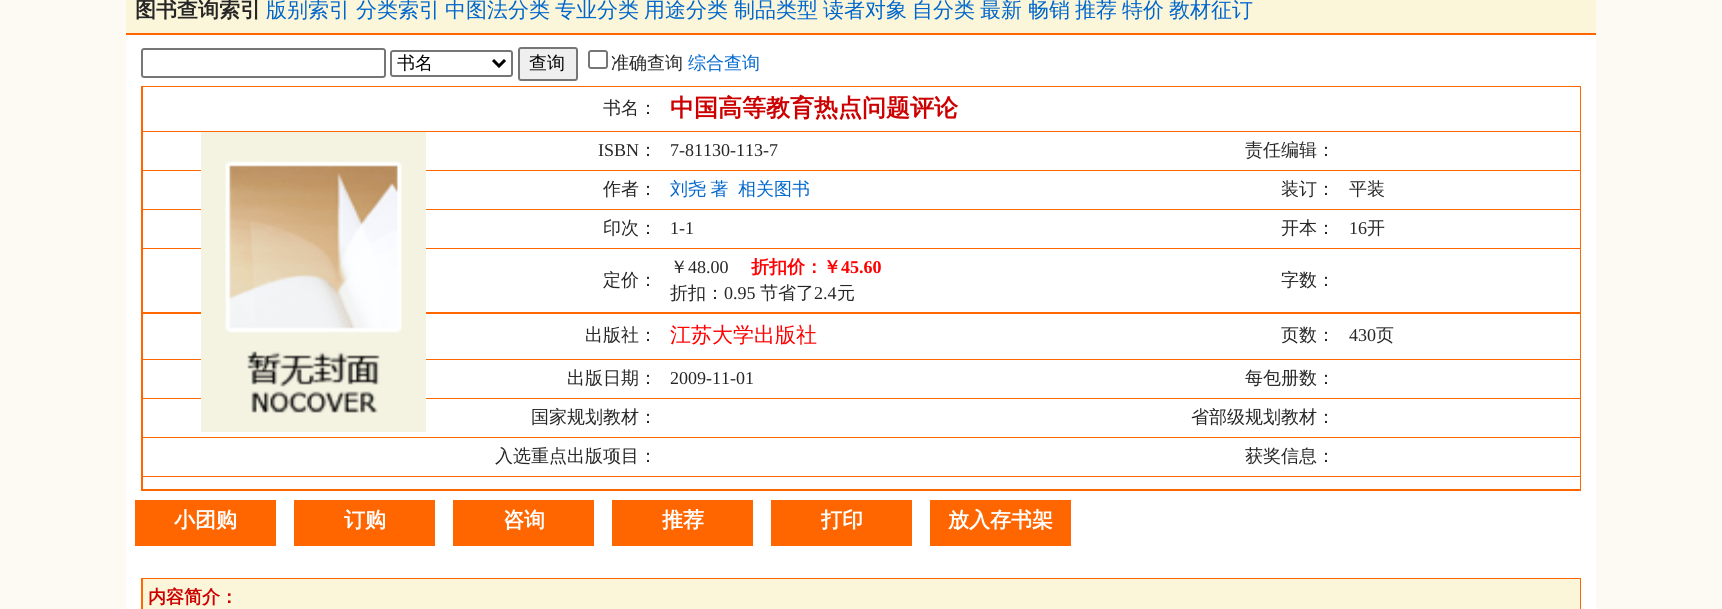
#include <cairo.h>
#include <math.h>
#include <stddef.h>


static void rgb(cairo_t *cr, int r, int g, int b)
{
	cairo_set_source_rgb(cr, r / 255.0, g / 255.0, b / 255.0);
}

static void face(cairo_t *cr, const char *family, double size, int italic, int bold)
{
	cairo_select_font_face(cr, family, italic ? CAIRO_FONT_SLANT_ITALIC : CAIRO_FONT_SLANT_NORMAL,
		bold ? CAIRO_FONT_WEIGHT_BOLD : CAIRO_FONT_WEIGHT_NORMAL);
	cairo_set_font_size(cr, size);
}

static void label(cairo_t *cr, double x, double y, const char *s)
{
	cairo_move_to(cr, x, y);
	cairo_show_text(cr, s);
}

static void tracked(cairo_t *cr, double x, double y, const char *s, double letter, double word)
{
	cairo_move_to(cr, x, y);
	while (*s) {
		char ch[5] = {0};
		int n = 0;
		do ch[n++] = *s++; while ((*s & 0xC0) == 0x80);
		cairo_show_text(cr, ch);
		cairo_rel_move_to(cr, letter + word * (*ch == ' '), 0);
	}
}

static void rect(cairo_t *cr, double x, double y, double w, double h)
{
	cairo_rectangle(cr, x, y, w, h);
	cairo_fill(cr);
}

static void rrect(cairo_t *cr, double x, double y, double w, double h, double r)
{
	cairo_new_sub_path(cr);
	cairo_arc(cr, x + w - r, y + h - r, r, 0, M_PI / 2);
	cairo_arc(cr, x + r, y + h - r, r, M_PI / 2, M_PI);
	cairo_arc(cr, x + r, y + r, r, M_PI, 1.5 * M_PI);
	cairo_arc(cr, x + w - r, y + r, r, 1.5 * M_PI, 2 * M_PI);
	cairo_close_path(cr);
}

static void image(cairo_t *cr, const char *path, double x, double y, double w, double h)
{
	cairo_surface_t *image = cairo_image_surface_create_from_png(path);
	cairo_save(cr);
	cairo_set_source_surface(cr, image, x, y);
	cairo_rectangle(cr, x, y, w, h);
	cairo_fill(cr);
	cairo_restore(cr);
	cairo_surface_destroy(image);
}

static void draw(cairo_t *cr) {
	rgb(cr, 252, 250, 243);
	cairo_paint(cr);
	rgb(cr, 255, 255, 255);
	rect(cr, 126, 35, 1470, 574);
	rgb(cr, 251, 246, 217);
	rect(cr, 126, 0, 1470, 33);
	rgb(cr, 255, 102, 0);
	rect(cr, 126, 33, 1470, 2);
	face(cr, "WenQuanYi Zen Hei", 21, 0, 1);
	rgb(cr, 38, 38, 38);
	label(cr, 135, 17, "图书查询索引");
	face(cr, "WenQuanYi Zen Hei Medium", 21, 0, 0);
	rgb(cr, 0, 102, 204);
	label(cr, 266, 17, "版别索引");
	label(cr, 356, 17, "分类索引");
	label(cr, 445, 17, "中图法分类");
	label(cr, 555, 17, "专业分类");
	label(cr, 644, 17, "用途分类");
	label(cr, 734, 17, "制品类型");
	label(cr, 823, 17, "读者对象");
	label(cr, 912, 17, "自分类");
	label(cr, 980, 17, "最新");
	label(cr, 1028, 17, "畅销");
	label(cr, 1075, 17, "推荐");
	label(cr, 1122, 17, "特价");
	label(cr, 1169, 17, "教材征订");
	rrect(cr, 142, 49, 243, 28, 2);
	rgb(cr, 118, 118, 118);
	cairo_stroke(cr);
	rrect(cr, 391, 51, 121, 25, 2);
	cairo_stroke(cr);
	cairo_new_path(cr);
	cairo_move_to(cr, 493, 60);
	cairo_line_to(cr, 499, 66);
	cairo_line_to(cr, 505, 60);
	rgb(cr, 0, 0, 0);
	cairo_set_line_width(cr, 3);
	cairo_stroke(cr);
	face(cr, "WenQuanYi Zen Hei Medium", 18, 0, 0);
	label(cr, 397, 69, "书名");
	rgb(cr, 239, 239, 239);
	rrect(cr, 519, 48, 58, 32, 2);
	cairo_fill_preserve(cr);
	rgb(cr, 118, 118, 118);
	cairo_set_line_width(cr, 2);
	cairo_stroke(cr);
	rgb(cr, 0, 0, 0);
	label(cr, 529, 69, "查询");
	rrect(cr, 589, 51, 18, 17, 2);
	rgb(cr, 118, 118, 118);
	cairo_stroke(cr);
	rgb(cr, 38, 38, 38);
	label(cr, 611, 69, "准确查询");
	rgb(cr, 0, 102, 204);
	label(cr, 688, 69, "综合查询");
	rgb(cr, 255, 102, 0);
	rect(cr, 141, 86, 1440, 405);
	rgb(cr, 255, 255, 255);
	rect(cr, 143, 87, 1437, 44);
	rgb(cr, 38, 38, 38);
	label(cr, 603, 114, "书名：");
	face(cr, "WenQuanYi Zen Hei", 24, 0, 1);
	rgb(cr, 204, 0, 0);
	label(cr, 670, 116, "中国高等教育热点问题评论");
	rgb(cr, 255, 255, 255);
	rect(cr, 143, 132, 1437, 38);
	rect(cr, 143, 171, 1437, 38);
	rect(cr, 143, 210, 1437, 38);
	rect(cr, 143, 249, 1437, 63);
	rect(cr, 143, 314, 1437, 45);
	rect(cr, 143, 360, 1437, 38);
	rect(cr, 143, 399, 1437, 38);
	image(cr, "image0.png", 201, 132, 225, 300);
	face(cr, "Liberation Serif", 18, 0, 0);
	rgb(cr, 38, 38, 38);
	label(cr, 598, 156, "ISBN");
	face(cr, "WenQuanYi Zen Hei Medium", 18, 0, 0);
	label(cr, 639, 156, "：");
	face(cr, "Liberation Serif", 18, 0, 0);
	label(cr, 670, 156, "7-81130-113-7");
	face(cr, "WenQuanYi Zen Hei Medium", 18, 0, 0);
	label(cr, 1245, 156, "责任编辑：");
	label(cr, 603, 195, "作者：");
	rgb(cr, 0, 102, 204);
	tracked(cr, 670, 195, "刘尧 著", 0, -1);
	label(cr, 738, 195, "相关图书");
	rgb(cr, 38, 38, 38);
	label(cr, 1281, 195, "装订：");
	label(cr, 1349, 195, "平装");
	label(cr, 603, 234, "印次：");
	face(cr, "Liberation Serif", 18, 0, 0);
	label(cr, 670, 234, "1-1");
	face(cr, "WenQuanYi Zen Hei Medium", 18, 0, 0);
	label(cr, 1281, 234, "开本：");
	face(cr, "Liberation Serif", 18, 0, 0);
	label(cr, 1349, 234, "16");
	face(cr, "WenQuanYi Zen Hei Medium", 18, 0, 0);
	label(cr, 1367, 234, "开");
	label(cr, 603, 286, "定价：");
	label(cr, 670, 273, "￥");
	face(cr, "Liberation Serif", 18, 0, 0);
	label(cr, 688, 273, "48.00");
	face(cr, "WenQuanYi Zen Hei", 18, 0, 1);
	rgb(cr, 255, 0, 0);
	label(cr, 751, 273, "折扣价：￥");
	face(cr, "Liberation Serif", 18, 0, 1);
	label(cr, 841, 273, "45.60");
	face(cr, "WenQuanYi Zen Hei Medium", 18, 0, 0);
	rgb(cr, 38, 38, 38);
	label(cr, 670, 299, "折扣：");
	face(cr, "Liberation Serif", 18, 0, 0);
	label(cr, 724, 299, "0.95");
	face(cr, "WenQuanYi Zen Hei Medium", 18, 0, 0);
	label(cr, 760, 299, "节省了");
	face(cr, "Liberation Serif", 18, 0, 0);
	label(cr, 814, 299, "2.4");
	face(cr, "WenQuanYi Zen Hei Medium", 18, 0, 0);
	label(cr, 837, 299, "元");
	label(cr, 1281, 286, "字数：");
	label(cr, 585, 341, "出版社：");
	face(cr, "WenQuanYi Zen Hei Medium", 21, 0, 0);
	rgb(cr, 255, 0, 0);
	label(cr, 670, 342, "江苏大学出版社");
	face(cr, "WenQuanYi Zen Hei Medium", 18, 0, 0);
	rgb(cr, 38, 38, 38);
	label(cr, 1281, 341, "页数：");
	face(cr, "Liberation Serif", 18, 0, 0);
	label(cr, 1349, 341, "430");
	face(cr, "WenQuanYi Zen Hei Medium", 18, 0, 0);
	label(cr, 1376, 341, "页");
	label(cr, 567, 384, "出版日期：");
	face(cr, "Liberation Serif", 18, 0, 0);
	label(cr, 670, 384, "2009-11-01");
	face(cr, "WenQuanYi Zen Hei Medium", 18, 0, 0);
	label(cr, 1245, 384, "每包册数：");
	label(cr, 531, 423, "国家规划教材：");
	label(cr, 1191, 423, "省部级规划教材：");
	rgb(cr, 255, 255, 255);
	rect(cr, 143, 438, 1437, 38);
	rgb(cr, 38, 38, 38);
	label(cr, 495, 462, "入选重点出版项目：");
	label(cr, 1245, 462, "获奖信息：");
	rgb(cr, 255, 255, 255);
	rect(cr, 143, 477, 1437, 12);
	rgb(cr, 255, 102, 0);
	rect(cr, 135, 500, 141, 46);
	face(cr, "WenQuanYi Zen Hei", 21, 0, 1);
	rgb(cr, 255, 255, 255);
	label(cr, 174, 527, "小团购");
	rgb(cr, 255, 102, 0);
	rect(cr, 294, 500, 141, 46);
	rgb(cr, 255, 255, 255);
	label(cr, 344, 527, "订购");
	rgb(cr, 255, 102, 0);
	rect(cr, 453, 500, 141, 46);
	rgb(cr, 255, 255, 255);
	label(cr, 503, 527, "咨询");
	rgb(cr, 255, 102, 0);
	rect(cr, 612, 500, 141, 46);
	rgb(cr, 255, 255, 255);
	label(cr, 662, 527, "推荐");
	rgb(cr, 255, 102, 0);
	rect(cr, 771, 500, 141, 46);
	rgb(cr, 255, 255, 255);
	label(cr, 821, 527, "打印");
	rgb(cr, 255, 102, 0);
	rect(cr, 930, 500, 141, 46);
	rgb(cr, 255, 255, 255);
	label(cr, 948, 527, "放入存书架");
	rgb(cr, 255, 102, 0);
	rect(cr, 141, 578, 1440, 31);
	rgb(cr, 251, 246, 217);
	rect(cr, 143, 579, 1437, 30);
	face(cr, "WenQuanYi Zen Hei", 18, 0, 1);
	rgb(cr, 204, 0, 0);
	label(cr, 148, 603, "内容简介：");
}

int main(void) {
	cairo_surface_t *surface = cairo_image_surface_create(CAIRO_FORMAT_RGB24, 1722, 609);
	cairo_t *cr = cairo_create(surface);
	cairo_font_options_t *options = cairo_font_options_create();
	cairo_font_options_set_hint_metrics(options, CAIRO_HINT_METRICS_OFF);
	cairo_font_options_set_hint_style(options, CAIRO_HINT_STYLE_NONE);
	cairo_set_font_options(cr, options);
	cairo_set_miter_limit(cr, 4);
	draw(cr);
	cairo_surface_write_to_png(surface, "render.png");
	cairo_font_options_destroy(options);
	cairo_destroy(cr);
	cairo_surface_destroy(surface);
	return 0;
}
